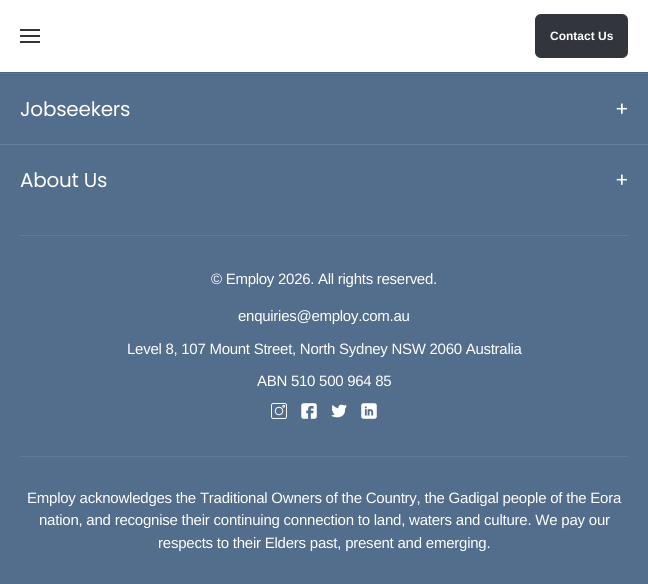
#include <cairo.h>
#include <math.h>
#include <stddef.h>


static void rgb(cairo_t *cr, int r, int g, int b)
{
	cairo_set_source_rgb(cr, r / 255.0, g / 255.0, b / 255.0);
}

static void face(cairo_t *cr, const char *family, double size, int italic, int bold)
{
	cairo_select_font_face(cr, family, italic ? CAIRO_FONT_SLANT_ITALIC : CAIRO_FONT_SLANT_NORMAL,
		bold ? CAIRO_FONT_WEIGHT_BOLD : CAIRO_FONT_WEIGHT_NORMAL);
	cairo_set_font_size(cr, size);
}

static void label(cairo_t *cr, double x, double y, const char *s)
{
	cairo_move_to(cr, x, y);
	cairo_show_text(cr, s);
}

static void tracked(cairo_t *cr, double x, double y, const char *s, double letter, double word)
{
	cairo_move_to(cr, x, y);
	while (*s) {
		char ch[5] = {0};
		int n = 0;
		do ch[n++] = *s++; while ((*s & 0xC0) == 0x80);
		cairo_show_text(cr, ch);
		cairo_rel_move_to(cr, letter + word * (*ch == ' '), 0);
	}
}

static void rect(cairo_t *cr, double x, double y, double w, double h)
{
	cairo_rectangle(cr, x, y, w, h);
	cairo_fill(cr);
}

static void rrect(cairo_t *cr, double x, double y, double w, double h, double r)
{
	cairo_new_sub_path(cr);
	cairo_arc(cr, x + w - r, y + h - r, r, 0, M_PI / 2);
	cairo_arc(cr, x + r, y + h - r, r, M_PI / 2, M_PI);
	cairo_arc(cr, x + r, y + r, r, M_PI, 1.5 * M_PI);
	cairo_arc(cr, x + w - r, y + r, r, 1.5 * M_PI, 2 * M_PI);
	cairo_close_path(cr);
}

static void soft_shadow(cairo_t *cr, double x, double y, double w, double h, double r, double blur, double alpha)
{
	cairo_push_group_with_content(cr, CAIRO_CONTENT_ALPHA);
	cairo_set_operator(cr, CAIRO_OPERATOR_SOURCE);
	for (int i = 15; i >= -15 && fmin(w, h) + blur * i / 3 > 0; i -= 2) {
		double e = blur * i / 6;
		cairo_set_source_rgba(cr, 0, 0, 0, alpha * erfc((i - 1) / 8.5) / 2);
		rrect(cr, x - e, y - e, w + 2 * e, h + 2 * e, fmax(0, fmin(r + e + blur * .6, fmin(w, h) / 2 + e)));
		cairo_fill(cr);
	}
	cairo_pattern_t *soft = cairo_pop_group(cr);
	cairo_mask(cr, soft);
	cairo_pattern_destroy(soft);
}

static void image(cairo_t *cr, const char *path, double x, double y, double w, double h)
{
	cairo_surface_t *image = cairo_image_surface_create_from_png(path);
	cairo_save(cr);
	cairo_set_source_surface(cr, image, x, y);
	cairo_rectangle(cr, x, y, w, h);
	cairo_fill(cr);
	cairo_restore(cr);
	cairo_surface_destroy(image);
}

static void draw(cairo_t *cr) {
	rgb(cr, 83, 109, 141);
	cairo_paint(cr);
	rgb(cr, 102, 125, 154);
	rect(cr, 0, 73, 648, 1);
	rgb(cr, 0, 0, 0);
	soft_shadow(cr, 1, 2, 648, 72, 0, 1.5, 0.1);
	rgb(cr, 255, 255, 255);
	rect(cr, 0, 0, 648, 72);
	rgb(cr, 50, 54, 60);
	rect(cr, 20, 29, 20, 2);
	rect(cr, 20, 35, 20, 2);
	rect(cr, 20, 41, 20, 2);
	rrect(cr, 535, 14, 93, 44, 6);
	cairo_fill(cr);
	face(cr, "Liberation Sans", 12, 0, 1);
	rgb(cr, 255, 255, 255);
	label(cr, 550, 40, "Contact Us");
	face(cr, "Poppins", 20, 0, 0);
	tracked(cr, 20, 116, "Jobseekers", -0.25, 0);
	tracked(cr, 615, 116, "+", -0.25, 0);
	rgb(cr, 102, 125, 154);
	rect(cr, 0, 144, 648, 1);
	rgb(cr, 255, 255, 255);
	tracked(cr, 20, 187, "About Us", -0.25, 0);
	tracked(cr, 615, 187, "+", -0.25, 0);
	rgb(cr, 98, 122, 151);
	rect(cr, 20, 235, 608, 1);
	rect(cr, 20, 456, 608, 1);
	face(cr, "Liberation Sans", 15, 0, 0);
	rgb(cr, 255, 255, 255);
	tracked(cr, 211, 284, "© Employ 2026. All rights reserved.", -0.27, 0);
	tracked(cr, 238, 321, "enquiries@employ.com.au", -0.27, 0);
	tracked(cr, 127, 354, "Level 8, 107 Mount Street, North Sydney NSW 2060 Australia", -0.27, 0);
	tracked(cr, 257, 386, "ABN 510 500 964 85", -0.27, 0);
	image(cr, "image0.png", 271, 403, 16, 16);
	image(cr, "image1.png", 301, 403, 16, 16);
	image(cr, "image2.png", 331, 404, 16, 14);
	image(cr, "image3.png", 361, 403, 16, 16);
	tracked(cr, 27, 503, "Employ acknowledges the Traditional Owners of the Country, the Gadigal people of the Eora", -0.23, 0);
	tracked(cr, 39, 525, "nation, and recognise their continuing connection to land, waters and culture. We pay our", -0.23, 0);
	tracked(cr, 158, 548, "respects to their Elders past, present and emerging.", -0.23, 0);
}

int main(void) {
	cairo_surface_t *surface = cairo_image_surface_create(CAIRO_FORMAT_RGB24, 648, 584);
	cairo_t *cr = cairo_create(surface);
	cairo_font_options_t *options = cairo_font_options_create();
	cairo_font_options_set_hint_metrics(options, CAIRO_HINT_METRICS_OFF);
	cairo_font_options_set_hint_style(options, CAIRO_HINT_STYLE_NONE);
	cairo_set_font_options(cr, options);
	cairo_set_miter_limit(cr, 4);
	draw(cr);
	cairo_surface_write_to_png(surface, "render.png");
	cairo_font_options_destroy(options);
	cairo_destroy(cr);
	cairo_surface_destroy(surface);
	return 0;
}
